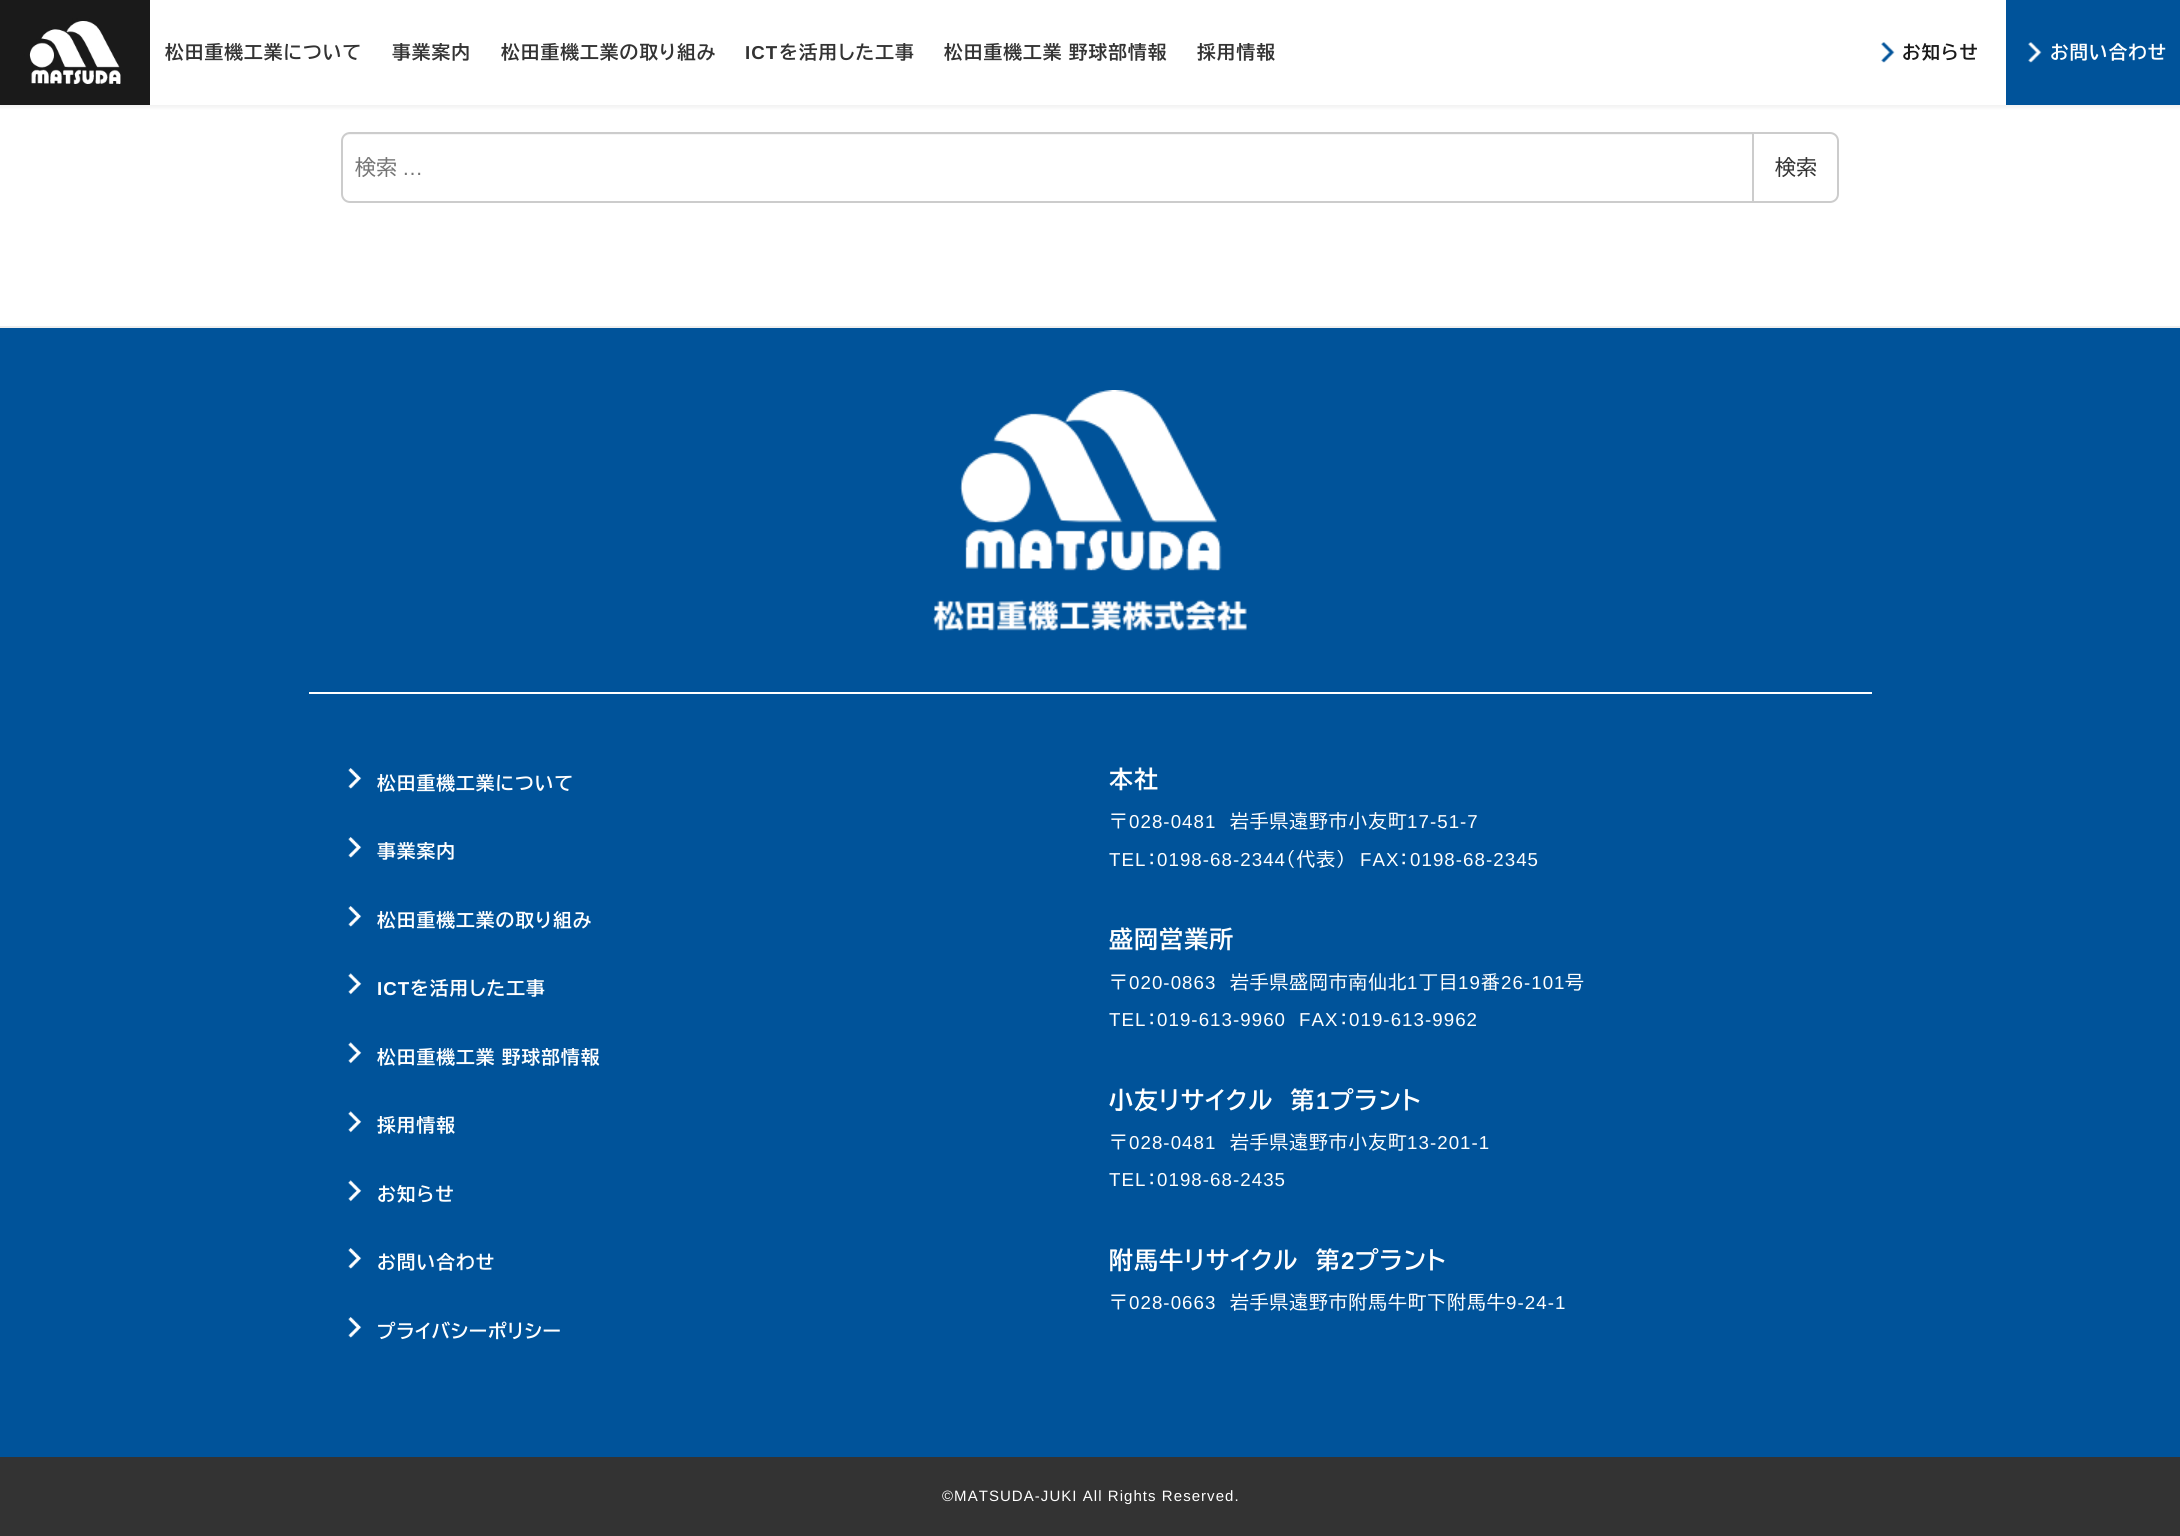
#include <cairo.h>
#include <math.h>
#include <stddef.h>


static void rgb(cairo_t *cr, int r, int g, int b)
{
	cairo_set_source_rgb(cr, r / 255.0, g / 255.0, b / 255.0);
}

static void face(cairo_t *cr, const char *family, double size, int italic, int bold)
{
	cairo_select_font_face(cr, family, italic ? CAIRO_FONT_SLANT_ITALIC : CAIRO_FONT_SLANT_NORMAL,
		bold ? CAIRO_FONT_WEIGHT_BOLD : CAIRO_FONT_WEIGHT_NORMAL);
	cairo_set_font_size(cr, size);
}

static void label(cairo_t *cr, double x, double y, const char *s)
{
	cairo_move_to(cr, x, y);
	cairo_show_text(cr, s);
}

static void tracked(cairo_t *cr, double x, double y, const char *s, double letter, double word)
{
	cairo_move_to(cr, x, y);
	while (*s) {
		char ch[5] = {0};
		int n = 0;
		do ch[n++] = *s++; while ((*s & 0xC0) == 0x80);
		cairo_show_text(cr, ch);
		cairo_rel_move_to(cr, letter + word * (*ch == ' '), 0);
	}
}

static void rect(cairo_t *cr, double x, double y, double w, double h)
{
	cairo_rectangle(cr, x, y, w, h);
	cairo_fill(cr);
}

static void rrect(cairo_t *cr, double x, double y, double w, double h, double r)
{
	cairo_new_sub_path(cr);
	cairo_arc(cr, x + w - r, y + h - r, r, 0, M_PI / 2);
	cairo_arc(cr, x + r, y + h - r, r, M_PI / 2, M_PI);
	cairo_arc(cr, x + r, y + r, r, M_PI, 1.5 * M_PI);
	cairo_arc(cr, x + w - r, y + r, r, 1.5 * M_PI, 2 * M_PI);
	cairo_close_path(cr);
}

static void soft_shadow(cairo_t *cr, double x, double y, double w, double h, double r, double blur, double alpha)
{
	cairo_push_group_with_content(cr, CAIRO_CONTENT_ALPHA);
	cairo_set_operator(cr, CAIRO_OPERATOR_SOURCE);
	for (int i = 15; i >= -15 && fmin(w, h) + blur * i / 3 > 0; i -= 2) {
		double e = blur * i / 6;
		cairo_set_source_rgba(cr, 0, 0, 0, alpha * erfc((i - 1) / 8.5) / 2);
		rrect(cr, x - e, y - e, w + 2 * e, h + 2 * e, fmax(0, fmin(r + e + blur * .6, fmin(w, h) / 2 + e)));
		cairo_fill(cr);
	}
	cairo_pattern_t *soft = cairo_pop_group(cr);
	cairo_mask(cr, soft);
	cairo_pattern_destroy(soft);
}

static void image(cairo_t *cr, const char *path, double x, double y, double w, double h)
{
	cairo_surface_t *image = cairo_image_surface_create_from_png(path);
	cairo_save(cr);
	cairo_set_source_surface(cr, image, x, y);
	cairo_rectangle(cr, x, y, w, h);
	cairo_fill(cr);
	cairo_restore(cr);
	cairo_surface_destroy(image);
}

static void draw(cairo_t *cr) {
	rgb(cr, 255, 255, 255);
	cairo_paint(cr);
	rgb(cr, 0, 0, 0);
	soft_shadow(cr, -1, 0, 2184, 108, 0, 1.5, 0.05);
	rgb(cr, 255, 255, 255);
	rect(cr, 150, 0, 1856, 105);
	image(cr, "image0.png", 0, 0, 150, 105);
	face(cr, "BIZ UDPGothic", 18.7, 0, 1);
	rgb(cr, 51, 51, 51);
	tracked(cr, 165, 59, "松田重機工業について", 1.05, 0);
	tracked(cr, 392, 59, "事業案内", 1.05, 0);
	tracked(cr, 501, 59, "松田重機工業の取り組み", 1.05, 0);
	face(cr, "Liberation Sans", 18.7, 0, 1);
	tracked(cr, 745, 59, "ICT", 1.05, 0);
	face(cr, "BIZ UDPGothic", 18.7, 0, 1);
	tracked(cr, 779, 59, "を活用した工事", 1.05, 0);
	tracked(cr, 944, 59, "松田重機工業 野球部情報", 1.05, -1);
	tracked(cr, 1197, 59, "採用情報", 1.05, 0);
	image(cr, "image1.png", 1881, 42, 14, 21);
	face(cr, "BIZ UDPGothic", 18.5, 0, 1);
	rgb(cr, 26, 26, 26);
	tracked(cr, 1902, 59, "お知らせ", 1.05, 0);
	rgb(cr, 0, 83, 154);
	rect(cr, 2006, 0, 174, 105);
	image(cr, "image2.png", 2028, 42, 14, 21);
	rgb(cr, 255, 255, 255);
	tracked(cr, 2050, 59, "お問い合わせ", 1.05, 0);
	cairo_new_path(cr);
	cairo_move_to(cr, 1753, 133);
	cairo_line_to(cr, 1830, 133);
	cairo_curve_to(cr, 1834.5, 133, 1838, 136.5, 1838, 141);
	cairo_line_to(cr, 1838, 194);
	cairo_curve_to(cr, 1838, 198.5, 1834.5, 202, 1830, 202);
	cairo_line_to(cr, 1753, 202);
	cairo_close_path(cr);
	rgb(cr, 204, 204, 204);
	cairo_stroke(cr);
	rgb(cr, 255, 255, 255);
	cairo_new_path(cr);
	cairo_move_to(cr, 350, 132);
	cairo_line_to(cr, 1754, 132);
	cairo_line_to(cr, 1754, 203);
	cairo_line_to(cr, 350, 203);
	cairo_curve_to(cr, 345, 203, 341, 199, 341, 194);
	cairo_line_to(cr, 341, 141);
	cairo_curve_to(cr, 341, 136, 345, 132, 350, 132);
	cairo_close_path(cr);
	cairo_fill(cr);
	rgb(cr, 246, 246, 246);
	cairo_new_path(cr);
	cairo_move_to(cr, 350, 135);
	cairo_line_to(cr, 1752, 135);
	cairo_line_to(cr, 1752, 134);
	cairo_line_to(cr, 350, 134);
	cairo_curve_to(cr, 346, 134, 342, 138, 342, 142);
	cairo_curve_to(cr, 342, 138, 345, 135, 350, 135);
	cairo_close_path(cr);
	cairo_fill(cr);
	cairo_new_path(cr);
	cairo_move_to(cr, 350, 133);
	cairo_line_to(cr, 1753, 133);
	cairo_line_to(cr, 1753, 202);
	cairo_line_to(cr, 350, 202);
	cairo_curve_to(cr, 345.5, 202, 342, 198.5, 342, 194);
	cairo_line_to(cr, 342, 141);
	cairo_curve_to(cr, 342, 136.5, 345.5, 133, 350, 133);
	cairo_close_path(cr);
	rgb(cr, 204, 204, 204);
	cairo_stroke(cr);
	face(cr, "BIZ UDPGothic", 21, 0, 0);
	rgb(cr, 117, 117, 117);
	label(cr, 355, 175, "検索");
	face(cr, "Liberation Sans", 21, 0, 0);
	label(cr, 402, 175, "…");
	face(cr, "BIZ UDPGothic", 21, 0, 0);
	rgb(cr, 51, 51, 51);
	label(cr, 1775, 175, "検索");
	rgb(cr, 0, 83, 154);
	rect(cr, 0, 328, 2180, 1129);
	rgb(cr, 238, 238, 238);
	rect(cr, 0, 326, 2180, 2);
	rgb(cr, 255, 255, 255);
	rect(cr, 309, 692, 1563, 2);
	image(cr, "image3.png", 933, 390, 314, 241);
	image(cr, "image4.png", 348, 768, 14, 21);
	face(cr, "BIZ UDPGothic", 18.7, 0, 1);
	tracked(cr, 377, 790, "松田重機工業について", 1.05, 0);
	image(cr, "image5.png", 348, 837, 14, 21);
	tracked(cr, 377, 858, "事業案内", 1.05, 0);
	image(cr, "image5.png", 348, 906, 14, 21);
	tracked(cr, 377, 927, "松田重機工業の取り組み", 1.05, 0);
	image(cr, "image6.png", 348, 973, 14, 22);
	face(cr, "Liberation Sans", 18.7, 0, 1);
	tracked(cr, 377, 995, "ICT", 1.05, 0);
	face(cr, "BIZ UDPGothic", 18.7, 0, 1);
	tracked(cr, 410, 995, "を活用した工事", 1.05, 0);
	image(cr, "image6.png", 348, 1042, 14, 22);
	tracked(cr, 377, 1064, "松田重機工業 野球部情報", 1.05, -1);
	image(cr, "image6.png", 348, 1111, 14, 22);
	tracked(cr, 377, 1132, "採用情報", 1.05, 0);
	image(cr, "image6.png", 348, 1180, 14, 22);
	tracked(cr, 377, 1201, "お知らせ", 1.05, 0);
	image(cr, "image5.png", 348, 1248, 14, 21);
	tracked(cr, 377, 1269, "お問い合わせ", 1.05, 0);
	image(cr, "image5.png", 348, 1317, 14, 21);
	tracked(cr, 377, 1338, "プライバシーポリシー", 1.05, 0);
	face(cr, "BIZ UDPGothic", 24, 0, 1);
	tracked(cr, 1109, 788, "本社", 1.05, 0);
	face(cr, "BIZ UDPGothic", 18.7, 0, 0);
	tracked(cr, 1109, 828, "〒", 1.05, 0);
	face(cr, "Liberation Sans", 18.7, 0, 0);
	tracked(cr, 1129, 828, "028-0481", 1.05, 0);
	face(cr, "BIZ UDPGothic", 18.7, 0, 0);
	tracked(cr, 1230, 828, "岩手県遠野市小友町", 1.05, 0);
	face(cr, "Liberation Sans", 18.7, 0, 0);
	tracked(cr, 1407, 828, "17-51-7", 1.05, 0);
	tracked(cr, 1109, 866, "TEL", 1.05, 0);
	face(cr, "BIZ UDPGothic", 18.7, 0, 0);
	tracked(cr, 1147, 866, "：", 1.05, 0);
	face(cr, "Liberation Sans", 18.7, 0, 0);
	tracked(cr, 1157, 866, "0198-68-2344", 1.05, 0);
	face(cr, "BIZ UDPGothic", 18.7, 0, 0);
	tracked(cr, 1286, 866, "（代表）", 1.05, 0);
	face(cr, "Liberation Sans", 18.7, 0, 0);
	tracked(cr, 1360, 866, "FAX", 1.05, 0);
	face(cr, "BIZ UDPGothic", 18.7, 0, 0);
	tracked(cr, 1399, 866, "：", 1.05, 0);
	face(cr, "Liberation Sans", 18.7, 0, 0);
	tracked(cr, 1410, 866, "0198-68-2345", 1.05, 0);
	face(cr, "BIZ UDPGothic", 24, 0, 1);
	tracked(cr, 1109, 948, "盛岡営業所", 1.05, 0);
	face(cr, "BIZ UDPGothic", 18.7, 0, 0);
	tracked(cr, 1109, 989, "〒", 1.05, 0);
	face(cr, "Liberation Sans", 18.7, 0, 0);
	tracked(cr, 1129, 989, "020-0863", 1.05, 0);
	face(cr, "BIZ UDPGothic", 18.7, 0, 0);
	tracked(cr, 1230, 989, "岩手県盛岡市南仙北", 1.05, 0);
	face(cr, "Liberation Sans", 18.7, 0, 0);
	tracked(cr, 1407, 989, "1", 1.05, 0);
	face(cr, "BIZ UDPGothic", 18.7, 0, 0);
	tracked(cr, 1419, 989, "丁目", 1.05, 0);
	face(cr, "Liberation Sans", 18.7, 0, 0);
	tracked(cr, 1458, 989, "19", 1.05, 0);
	face(cr, "BIZ UDPGothic", 18.7, 0, 0);
	tracked(cr, 1481, 989, "番", 1.05, 0);
	face(cr, "Liberation Sans", 18.7, 0, 0);
	tracked(cr, 1501, 989, "26-101", 1.05, 0);
	face(cr, "BIZ UDPGothic", 18.7, 0, 0);
	tracked(cr, 1565, 989, "号", 1.05, 0);
	face(cr, "Liberation Sans", 18.7, 0, 0);
	tracked(cr, 1109, 1026, "TEL", 1.05, 0);
	face(cr, "BIZ UDPGothic", 18.7, 0, 0);
	tracked(cr, 1147, 1026, "：", 1.05, 0);
	face(cr, "Liberation Sans", 18.7, 0, 0);
	tracked(cr, 1157, 1026, "019-613-9960", 1.05, 0);
	tracked(cr, 1299, 1026, "FAX", 1.05, 0);
	face(cr, "BIZ UDPGothic", 18.7, 0, 0);
	tracked(cr, 1339, 1026, "：", 1.05, 0);
	face(cr, "Liberation Sans", 18.7, 0, 0);
	tracked(cr, 1349, 1026, "019-613-9962", 1.05, 0);
	face(cr, "BIZ UDPGothic", 24, 0, 1);
	tracked(cr, 1109, 1109, "小友リサイクル　第", 1.05, 0);
	face(cr, "Liberation Sans", 24, 0, 1);
	tracked(cr, 1316, 1109, "1", 1.05, 0);
	face(cr, "BIZ UDPGothic", 24, 0, 1);
	tracked(cr, 1330, 1109, "プラント", 1.05, 0);
	face(cr, "BIZ UDPGothic", 18.7, 0, 0);
	tracked(cr, 1109, 1149, "〒", 1.05, 0);
	face(cr, "Liberation Sans", 18.7, 0, 0);
	tracked(cr, 1129, 1149, "028-0481", 1.05, 0);
	face(cr, "BIZ UDPGothic", 18.7, 0, 0);
	tracked(cr, 1230, 1149, "岩手県遠野市小友町", 1.05, 0);
	face(cr, "Liberation Sans", 18.7, 0, 0);
	tracked(cr, 1407, 1149, "13-201-1", 1.05, 0);
	tracked(cr, 1109, 1186, "TEL", 1.05, 0);
	face(cr, "BIZ UDPGothic", 18.7, 0, 0);
	tracked(cr, 1147, 1186, "：", 1.05, 0);
	face(cr, "Liberation Sans", 18.7, 0, 0);
	tracked(cr, 1157, 1186, "0198-68-2435", 1.05, 0);
	face(cr, "BIZ UDPGothic", 24, 0, 1);
	tracked(cr, 1109, 1269, "附馬牛リサイクル　第", 1.05, 0);
	face(cr, "Liberation Sans", 24, 0, 1);
	tracked(cr, 1341, 1269, "2", 1.05, 0);
	face(cr, "BIZ UDPGothic", 24, 0, 1);
	tracked(cr, 1355, 1269, "プラント", 1.05, 0);
	face(cr, "BIZ UDPGothic", 18.7, 0, 0);
	tracked(cr, 1109, 1309, "〒", 1.05, 0);
	face(cr, "Liberation Sans", 18.7, 0, 0);
	tracked(cr, 1129, 1309, "028-0663", 1.05, 0);
	face(cr, "BIZ UDPGothic", 18.7, 0, 0);
	tracked(cr, 1230, 1309, "岩手県遠野市附馬牛町下附馬牛", 1.05, 0);
	face(cr, "Liberation Sans", 18.7, 0, 0);
	tracked(cr, 1506, 1309, "9-24-1", 1.05, 0);
	rgb(cr, 51, 51, 51);
	rect(cr, 0, 1457, 2180, 79);
	face(cr, "Liberation Sans", 15, 0, 0);
	rgb(cr, 255, 255, 255);
	tracked(cr, 942, 1501, "©MATSUDA-JUKI All Rights Reserved.", 1.05, 0);
}

int main(void) {
	cairo_surface_t *surface = cairo_image_surface_create(CAIRO_FORMAT_RGB24, 2180, 1536);
	cairo_t *cr = cairo_create(surface);
	cairo_font_options_t *options = cairo_font_options_create();
	cairo_font_options_set_hint_metrics(options, CAIRO_HINT_METRICS_OFF);
	cairo_font_options_set_hint_style(options, CAIRO_HINT_STYLE_NONE);
	cairo_set_font_options(cr, options);
	cairo_set_miter_limit(cr, 4);
	draw(cr);
	cairo_surface_write_to_png(surface, "render.png");
	cairo_font_options_destroy(options);
	cairo_destroy(cr);
	cairo_surface_destroy(surface);
	return 0;
}
